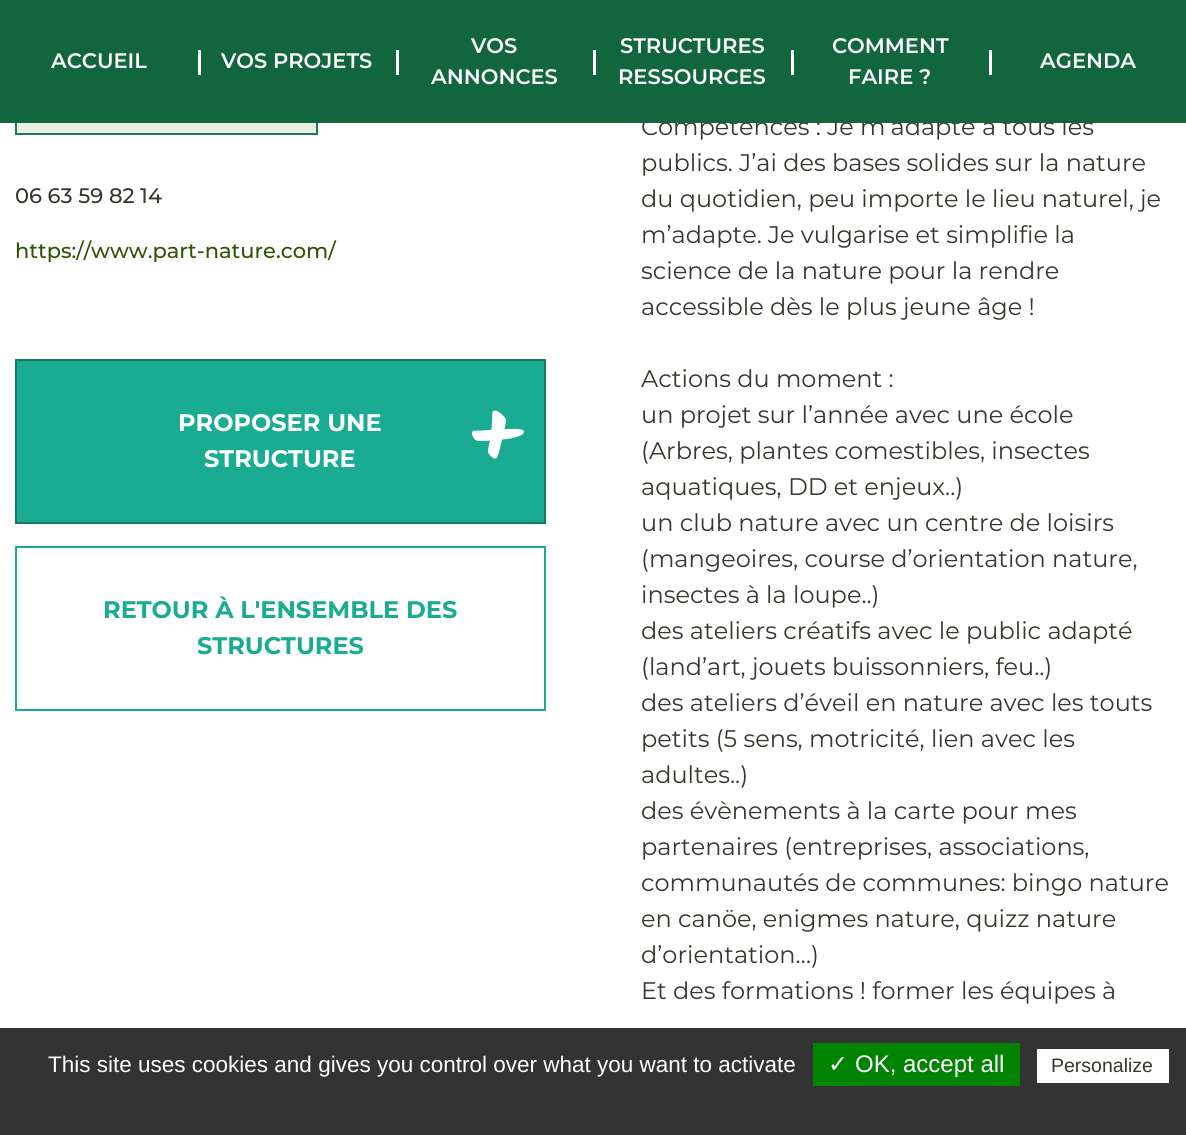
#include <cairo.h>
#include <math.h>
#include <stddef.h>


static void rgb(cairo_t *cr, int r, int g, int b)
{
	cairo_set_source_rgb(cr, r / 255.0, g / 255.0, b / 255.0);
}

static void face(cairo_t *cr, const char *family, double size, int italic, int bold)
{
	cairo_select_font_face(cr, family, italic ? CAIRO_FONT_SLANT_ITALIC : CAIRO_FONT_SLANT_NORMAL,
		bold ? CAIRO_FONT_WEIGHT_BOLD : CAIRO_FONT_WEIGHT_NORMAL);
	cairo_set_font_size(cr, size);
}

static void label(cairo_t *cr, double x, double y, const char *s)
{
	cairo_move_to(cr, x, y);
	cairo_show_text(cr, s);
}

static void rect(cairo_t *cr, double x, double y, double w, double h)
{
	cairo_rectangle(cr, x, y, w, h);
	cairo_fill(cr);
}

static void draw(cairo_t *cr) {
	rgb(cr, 255, 255, 255);
	cairo_paint(cr);
	rgb(cr, 235, 239, 223);
	rect(cr, 17, 123, 299, 10);
	cairo_rectangle(cr, 16, 69, 301, 65);
	rgb(cr, 22, 123, 98);
	cairo_stroke(cr);
	face(cr, "Montserrat", 24, 0, 0);
	rgb(cr, 54, 56, 47);
	label(cr, 641, 135, "Compétences : Je m’adapte à tous les");
	rgb(cr, 18, 102, 62);
	rect(cr, 0, 0, 1186, 123);
	face(cr, "Montserrat SemiBold", 21, 0, 0);
	rgb(cr, 255, 255, 255);
	label(cr, 51, 68, "ACCUEIL");
	rect(cr, 198, 50, 3, 25);
	label(cr, 221, 68, "VOS PROJETS");
	rect(cr, 396, 50, 3, 25);
	label(cr, 471, 53, "VOS");
	label(cr, 431, 84, "ANNONCES");
	rect(cr, 593, 50, 3, 25);
	label(cr, 620, 53, "STRUCTURES");
	label(cr, 618, 84, "RESSOURCES");
	rect(cr, 791, 50, 3, 25);
	label(cr, 832, 53, "COMMENT");
	label(cr, 848, 84, "FAIRE ?");
	rect(cr, 989, 50, 3, 25);
	label(cr, 1040, 68, "AGENDA");
	face(cr, "Montserrat Medium", 21, 0, 0);
	rgb(cr, 54, 56, 47);
	label(cr, 15, 203, "06 63 59 82 14");
	rgb(cr, 48, 84, 3);
	label(cr, 15, 258, "https://www.part-nature.com/");
	rgb(cr, 26, 172, 146);
	cairo_rectangle(cr, 16, 360, 529, 163);
	cairo_fill_preserve(cr);
	rgb(cr, 22, 123, 98);
	cairo_stroke(cr);
	face(cr, "Montserrat", 24, 0, 1);
	rgb(cr, 255, 255, 255);
	label(cr, 178, 431, "PROPOSER UNE");
	label(cr, 204, 467, "STRUCTURE");
	face(cr, "Kalam", 90, 0, 1);
	label(cr, 467, 465, "+");
	cairo_rectangle(cr, 16, 547, 529, 163);
	rgb(cr, 26, 172, 146);
	cairo_stroke(cr);
	face(cr, "Montserrat", 24, 0, 1);
	label(cr, 103, 618, "RETOUR À L'ENSEMBLE DES");
	label(cr, 197, 654, "STRUCTURES");
	face(cr, "Montserrat", 24, 0, 0);
	rgb(cr, 54, 56, 47);
	label(cr, 641, 171, "publics. J’ai des bases solides sur la nature");
	label(cr, 641, 207, "du quotidien, peu importe le lieu naturel, je");
	label(cr, 641, 243, "m’adapte. Je vulgarise et simplifie la");
	label(cr, 641, 279, "science de la nature pour la rendre");
	label(cr, 641, 315, "accessible dès le plus jeune âge !");
	label(cr, 641, 387, "Actions du moment :");
	label(cr, 641, 423, "un projet sur l’année avec une école");
	label(cr, 641, 459, "(Arbres, plantes comestibles, insectes");
	label(cr, 641, 495, "aquatiques, DD et enjeux..)");
	label(cr, 641, 531, "un club nature avec un centre de loisirs");
	label(cr, 641, 567, "(mangeoires, course d’orientation nature,");
	label(cr, 641, 603, "insectes à la loupe..)");
	label(cr, 641, 639, "des ateliers créatifs avec le public adapté");
	label(cr, 641, 675, "(land’art, jouets buissonniers, feu..)");
	label(cr, 641, 711, "des ateliers d’éveil en nature avec les touts");
	label(cr, 641, 747, "petits (5 sens, motricité, lien avec les");
	label(cr, 641, 783, "adultes..)");
	label(cr, 641, 819, "des évènements à la carte pour mes");
	label(cr, 641, 855, "partenaires (entreprises, associations,");
	label(cr, 641, 891, "communautés de communes: bingo nature");
	label(cr, 641, 927, "en canöe, enigmes nature, quizz nature");
	label(cr, 641, 963, "d’orientation…)");
	label(cr, 641, 999, "Et des formations ! former les équipes à");
	rgb(cr, 51, 51, 51);
	rect(cr, 0, 1028, 1186, 107);
	face(cr, "Liberation Sans", 22.5, 0, 0);
	rgb(cr, 255, 255, 255);
	label(cr, 48, 1072, "This site uses cookies and gives you control over what you want to activate");
	rgb(cr, 0, 131, 0);
	rect(cr, 813, 1043, 207, 43);
	face(cr, "DejaVu Sans", 24, 0, 0);
	rgb(cr, 255, 255, 255);
	label(cr, 828, 1072, "✓");
	face(cr, "Liberation Sans", 24, 0, 0);
	label(cr, 855, 1072, "OK, accept all");
	rect(cr, 1037, 1049, 132, 34);
	face(cr, "Liberation Sans", 19.5, 0, 0);
	rgb(cr, 54, 56, 47);
	label(cr, 1051, 1072, "Personalize");
}

int main(void) {
	cairo_surface_t *surface = cairo_image_surface_create(CAIRO_FORMAT_RGB24, 1186, 1135);
	cairo_t *cr = cairo_create(surface);
	cairo_font_options_t *options = cairo_font_options_create();
	cairo_font_options_set_hint_metrics(options, CAIRO_HINT_METRICS_OFF);
	cairo_font_options_set_hint_style(options, CAIRO_HINT_STYLE_NONE);
	cairo_set_font_options(cr, options);
	cairo_set_miter_limit(cr, 4);
	draw(cr);
	cairo_surface_write_to_png(surface, "render.png");
	cairo_font_options_destroy(options);
	cairo_destroy(cr);
	cairo_surface_destroy(surface);
	return 0;
}
